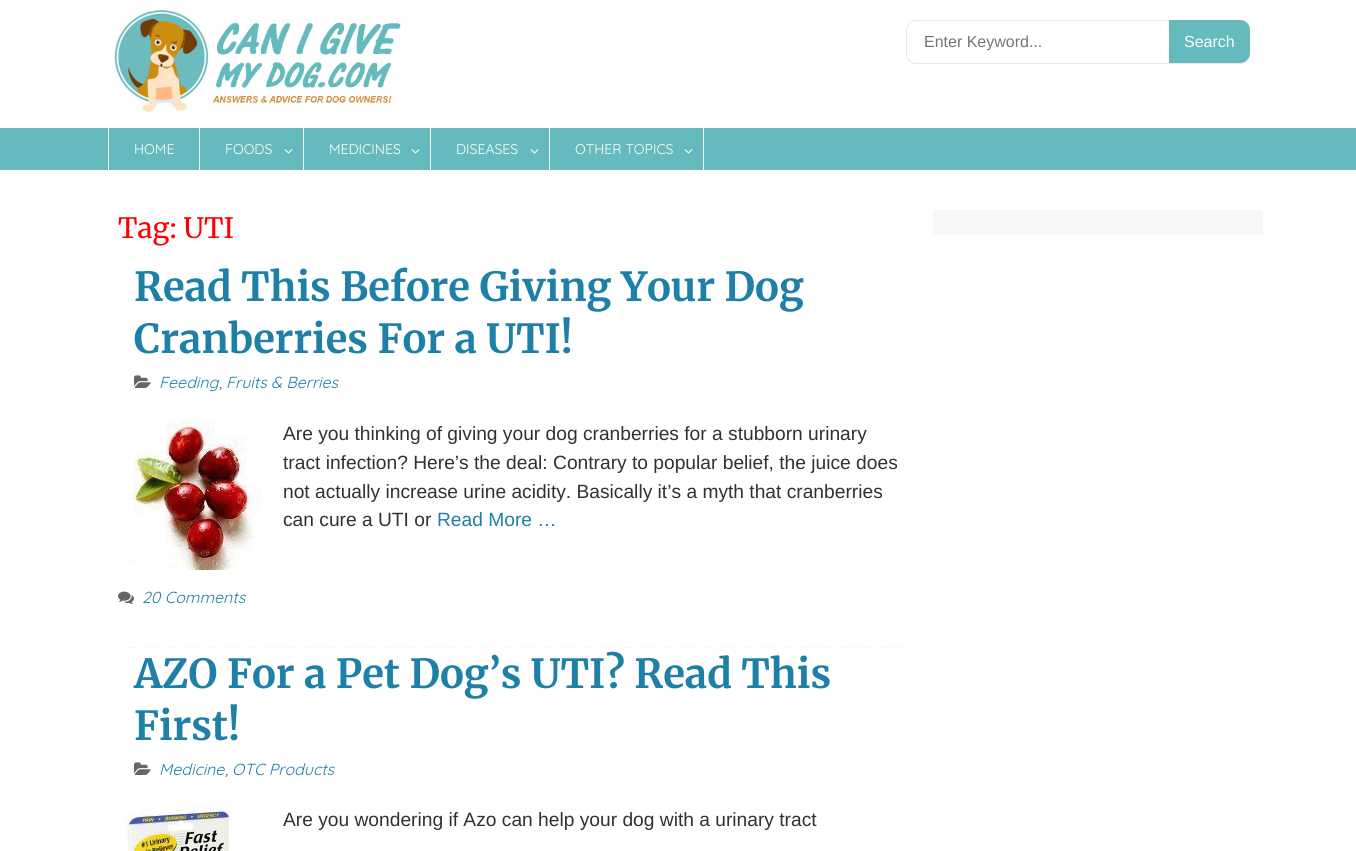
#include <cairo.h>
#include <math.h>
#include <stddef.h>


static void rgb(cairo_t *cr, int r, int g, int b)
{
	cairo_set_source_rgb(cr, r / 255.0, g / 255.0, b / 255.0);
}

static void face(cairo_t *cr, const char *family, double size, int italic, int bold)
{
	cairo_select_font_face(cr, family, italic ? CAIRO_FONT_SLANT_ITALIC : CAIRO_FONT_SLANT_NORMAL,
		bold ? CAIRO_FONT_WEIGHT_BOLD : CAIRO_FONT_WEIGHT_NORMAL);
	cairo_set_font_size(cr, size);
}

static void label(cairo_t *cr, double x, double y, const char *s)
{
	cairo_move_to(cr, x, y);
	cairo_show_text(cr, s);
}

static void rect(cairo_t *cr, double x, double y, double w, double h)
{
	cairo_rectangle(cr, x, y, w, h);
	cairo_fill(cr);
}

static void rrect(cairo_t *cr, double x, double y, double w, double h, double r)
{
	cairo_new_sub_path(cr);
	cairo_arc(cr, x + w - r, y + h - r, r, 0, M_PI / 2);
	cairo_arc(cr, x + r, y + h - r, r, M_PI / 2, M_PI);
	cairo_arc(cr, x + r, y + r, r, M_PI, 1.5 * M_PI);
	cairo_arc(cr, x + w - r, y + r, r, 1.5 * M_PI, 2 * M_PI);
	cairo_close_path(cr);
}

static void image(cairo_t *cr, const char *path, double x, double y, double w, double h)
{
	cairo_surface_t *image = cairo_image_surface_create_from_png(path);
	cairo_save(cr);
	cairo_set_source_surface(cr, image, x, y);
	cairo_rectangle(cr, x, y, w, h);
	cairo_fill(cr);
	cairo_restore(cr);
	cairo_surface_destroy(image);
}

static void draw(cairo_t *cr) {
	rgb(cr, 255, 255, 255);
	cairo_paint(cr);
	image(cr, "image0.png", 113, 10, 289, 102);
	rrect(cr, 906.5, 20.5, 343, 43, 9.5);
	rgb(cr, 230, 230, 230);
	cairo_set_line_width(cr, 1);
	cairo_stroke(cr);
	face(cr, "Liberation Sans", 16, 0, 0);
	rgb(cr, 117, 117, 117);
	label(cr, 924, 47, "Enter Keyword...");
	rgb(cr, 101, 186, 189);
	cairo_new_path(cr);
	cairo_move_to(cr, 1169, 20);
	cairo_line_to(cr, 1240, 20);
	cairo_curve_to(cr, 1245.5, 20, 1250, 24.5, 1250, 30);
	cairo_line_to(cr, 1250, 53);
	cairo_curve_to(cr, 1250, 58.5, 1245.5, 63, 1240, 63);
	cairo_line_to(cr, 1169, 63);
	cairo_close_path(cr);
	cairo_fill(cr);
	rgb(cr, 255, 255, 255);
	label(cr, 1184, 47, "Search");
	rgb(cr, 101, 186, 189);
	rect(cr, 0, 128, 1356, 42);
	rgb(cr, 255, 255, 255);
	rect(cr, 199, 128, 1, 42);
	rect(cr, 108, 128, 1, 42);
	face(cr, "Quicksand", 14, 0, 0);
	label(cr, 134, 154, "HOME");
	rect(cr, 303, 128, 1, 42);
	label(cr, 225, 154, "FOODS");
	image(cr, "image1.png", 284, 149, 9, 5);
	rect(cr, 430, 128, 1, 42);
	label(cr, 329, 154, "MEDICINES");
	image(cr, "image1.png", 411, 149, 9, 5);
	rect(cr, 549, 128, 1, 42);
	label(cr, 456, 154, "DISEASES");
	image(cr, "image1.png", 530, 149, 9, 5);
	rect(cr, 703, 128, 1, 42);
	label(cr, 575, 154, "OTHER TOPICS");
	image(cr, "image1.png", 684, 149, 9, 5);
	face(cr, "Merriweather", 28, 0, 0);
	rgb(cr, 255, 0, 0);
	label(cr, 118, 238, "Tag: UTI");
	cairo_new_path(cr);
	cairo_move_to(cr, 118, 647.5);
	cairo_line_to(cr, 908, 647.5);
	rgb(cr, 247, 247, 247);
	cairo_set_dash(cr, (double[]){3, 2.01}, 2, 0);
	cairo_stroke(cr);
	face(cr, "Merriweather", 40, 0, 1);
	rgb(cr, 30, 128, 167);
	label(cr, 134, 301, "Read This Before Giving Your Dog");
	label(cr, 134, 353, "Cranberries For a UTI!");
	image(cr, "image2.png", 134, 375, 17, 13);
	face(cr, "Quicksand", 16, 1, 0);
	label(cr, 159, 388, "Feeding");
	face(cr, "Quicksand", 16, 0, 0);
	rgb(cr, 102, 102, 102);
	label(cr, 219, 388, ",");
	face(cr, "Quicksand", 16, 1, 0);
	rgb(cr, 30, 128, 167);
	label(cr, 226, 388, "Fruits & Berries");
	image(cr, "image3.png", 120, 420, 142, 150);
	face(cr, "Liberation Sans", 19.2, 0, 0);
	rgb(cr, 49, 49, 50);
	label(cr, 283, 440, "Are you thinking of giving your dog cranberries for a stubborn urinary");
	label(cr, 283, 469, "tract infection? Here’s the deal: Contrary to popular belief, the juice does");
	label(cr, 283, 498, "not actually increase urine acidity. Basically it’s a myth that cranberries");
	label(cr, 283, 526, "can cure a UTI or");
	rgb(cr, 30, 128, 167);
	label(cr, 437, 526, "Read More …");
	image(cr, "image4.png", 118, 591, 16, 14);
	face(cr, "Quicksand", 16, 1, 0);
	label(cr, 142, 603, "20 Comments");
	face(cr, "Merriweather", 40, 0, 1);
	label(cr, 134, 688, "AZO For a Pet Dog’s UTI? Read This");
	label(cr, 134, 740, "First!");
	image(cr, "image2.png", 134, 762, 17, 13);
	face(cr, "Quicksand", 16, 1, 0);
	label(cr, 159, 775, "Medicine");
	face(cr, "Quicksand", 16, 0, 0);
	rgb(cr, 102, 102, 102);
	label(cr, 225, 775, ",");
	face(cr, "Quicksand", 16, 1, 0);
	rgb(cr, 30, 128, 167);
	label(cr, 232, 775, "OTC Products");
	image(cr, "image5.png", 118, 806, 113, 45);
	face(cr, "Liberation Sans", 19.2, 0, 0);
	rgb(cr, 49, 49, 50);
	label(cr, 283, 826, "Are you wondering if Azo can help your dog with a urinary tract");
	rgb(cr, 247, 247, 247);
	rect(cr, 933, 210, 330, 25);
}

int main(void) {
	cairo_surface_t *surface = cairo_image_surface_create(CAIRO_FORMAT_RGB24, 1356, 851);
	cairo_t *cr = cairo_create(surface);
	cairo_font_options_t *options = cairo_font_options_create();
	cairo_font_options_set_hint_metrics(options, CAIRO_HINT_METRICS_OFF);
	cairo_font_options_set_hint_style(options, CAIRO_HINT_STYLE_NONE);
	cairo_set_font_options(cr, options);
	cairo_set_miter_limit(cr, 4);
	draw(cr);
	cairo_surface_write_to_png(surface, "render.png");
	cairo_font_options_destroy(options);
	cairo_destroy(cr);
	cairo_surface_destroy(surface);
	return 0;
}
